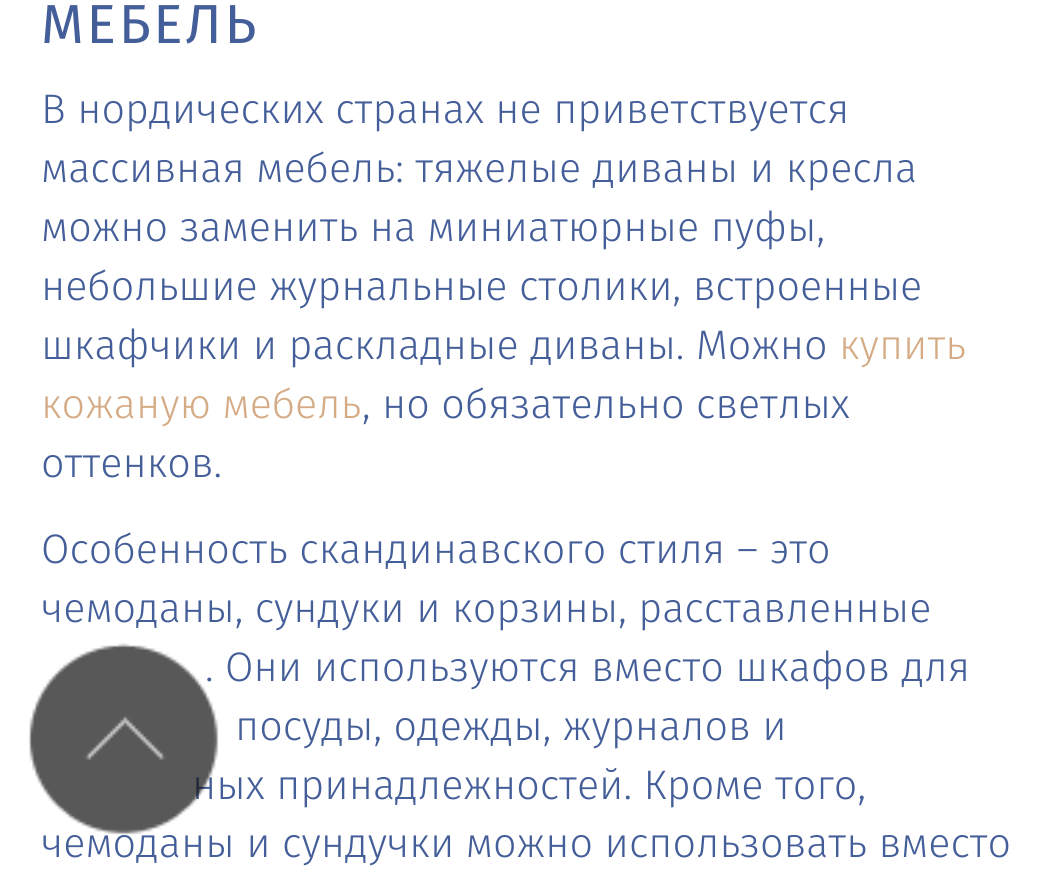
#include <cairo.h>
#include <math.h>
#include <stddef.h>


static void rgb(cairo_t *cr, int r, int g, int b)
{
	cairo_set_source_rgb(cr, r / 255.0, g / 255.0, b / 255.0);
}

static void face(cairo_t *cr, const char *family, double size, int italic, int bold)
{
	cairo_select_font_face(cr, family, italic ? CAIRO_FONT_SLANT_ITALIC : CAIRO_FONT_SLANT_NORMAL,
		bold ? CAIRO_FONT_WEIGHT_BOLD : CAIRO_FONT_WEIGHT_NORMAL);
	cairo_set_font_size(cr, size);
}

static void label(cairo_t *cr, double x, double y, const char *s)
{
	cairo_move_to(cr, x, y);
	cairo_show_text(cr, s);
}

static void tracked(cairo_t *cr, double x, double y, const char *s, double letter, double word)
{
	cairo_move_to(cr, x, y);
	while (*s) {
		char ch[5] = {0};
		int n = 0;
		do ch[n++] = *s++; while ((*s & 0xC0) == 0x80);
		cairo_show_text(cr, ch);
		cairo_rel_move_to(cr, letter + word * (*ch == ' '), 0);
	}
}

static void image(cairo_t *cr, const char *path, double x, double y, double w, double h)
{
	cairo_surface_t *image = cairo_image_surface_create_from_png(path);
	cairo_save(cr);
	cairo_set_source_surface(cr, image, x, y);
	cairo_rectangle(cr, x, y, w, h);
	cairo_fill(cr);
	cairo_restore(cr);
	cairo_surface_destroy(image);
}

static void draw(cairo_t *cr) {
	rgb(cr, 255, 255, 255);
	cairo_paint(cr);
	face(cr, "Fira Sans", 55, 0, 0);
	rgb(cr, 68, 94, 153);
	tracked(cr, 41, 43, "МЕБЕЛЬ", 2.75, 0);
	face(cr, "Fira Sans Light", 41.25, 0, 0);
	label(cr, 41, 123, "В нордических странах не приветствуется");
	label(cr, 41, 182, "массивная мебель: тяжелые диваны и кресла");
	label(cr, 41, 241, "можно заменить на миниатюрные пуфы,");
	label(cr, 41, 300, "небольшие журнальные столики, встроенные");
	label(cr, 41, 359, "шкафчики и раскладные диваны. Можно");
	rgb(cr, 213, 171, 133);
	label(cr, 839, 359, "купить");
	label(cr, 41, 418, "кожаную мебель");
	rgb(cr, 68, 94, 153);
	label(cr, 362, 418, ", но обязательно светлых");
	label(cr, 41, 477, "оттенков.");
	label(cr, 41, 563, "Особенность скандинавского стиля – это");
	label(cr, 41, 622, "чемоданы, сундуки и корзины, расставленные");
	label(cr, 205, 681, ". Они используются вместо шкафов для");
	label(cr, 235, 740, "посуды, одежды, журналов и");
	label(cr, 192, 799, "ных принадлежностей. Кроме того,");
	label(cr, 41, 857, "чемоданы и сундучки можно использовать вместо");
	image(cr, "image0.png", 28, 643, 191, 192);
}

int main(void) {
	cairo_surface_t *surface = cairo_image_surface_create(CAIRO_FORMAT_RGB24, 1055, 891);
	cairo_t *cr = cairo_create(surface);
	cairo_font_options_t *options = cairo_font_options_create();
	cairo_font_options_set_hint_metrics(options, CAIRO_HINT_METRICS_OFF);
	cairo_font_options_set_hint_style(options, CAIRO_HINT_STYLE_NONE);
	cairo_set_font_options(cr, options);
	cairo_set_miter_limit(cr, 4);
	draw(cr);
	cairo_surface_write_to_png(surface, "render.png");
	cairo_font_options_destroy(options);
	cairo_destroy(cr);
	cairo_surface_destroy(surface);
	return 0;
}
